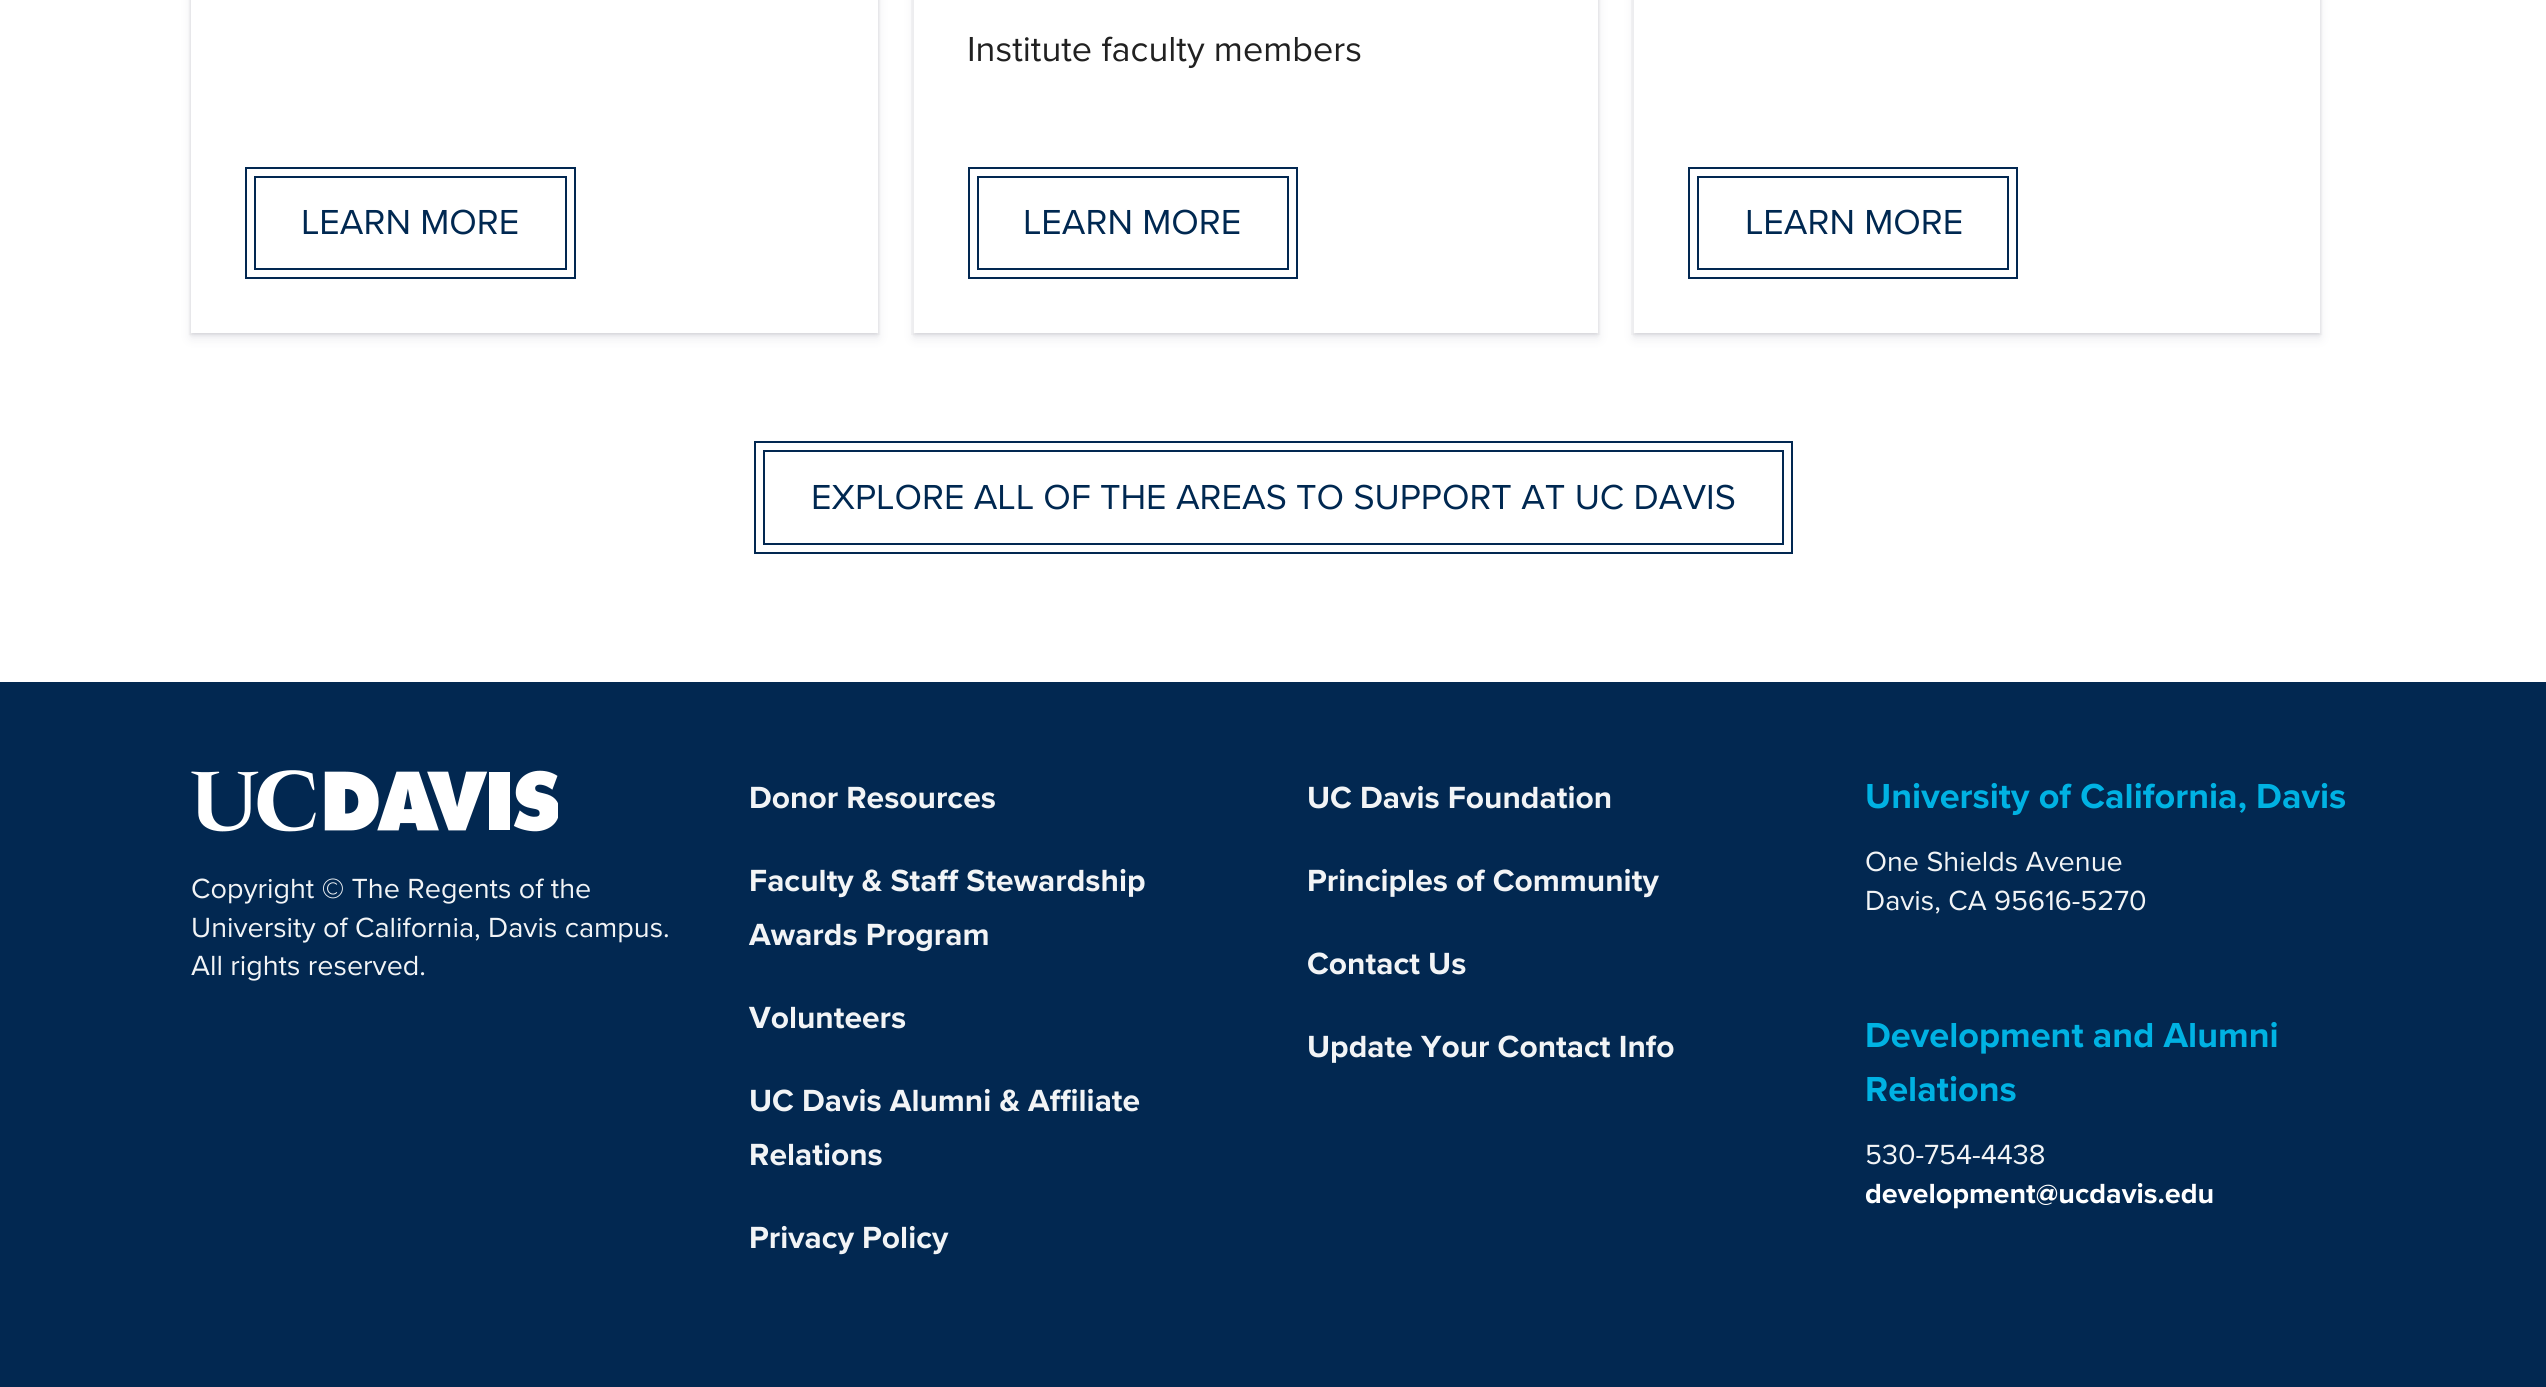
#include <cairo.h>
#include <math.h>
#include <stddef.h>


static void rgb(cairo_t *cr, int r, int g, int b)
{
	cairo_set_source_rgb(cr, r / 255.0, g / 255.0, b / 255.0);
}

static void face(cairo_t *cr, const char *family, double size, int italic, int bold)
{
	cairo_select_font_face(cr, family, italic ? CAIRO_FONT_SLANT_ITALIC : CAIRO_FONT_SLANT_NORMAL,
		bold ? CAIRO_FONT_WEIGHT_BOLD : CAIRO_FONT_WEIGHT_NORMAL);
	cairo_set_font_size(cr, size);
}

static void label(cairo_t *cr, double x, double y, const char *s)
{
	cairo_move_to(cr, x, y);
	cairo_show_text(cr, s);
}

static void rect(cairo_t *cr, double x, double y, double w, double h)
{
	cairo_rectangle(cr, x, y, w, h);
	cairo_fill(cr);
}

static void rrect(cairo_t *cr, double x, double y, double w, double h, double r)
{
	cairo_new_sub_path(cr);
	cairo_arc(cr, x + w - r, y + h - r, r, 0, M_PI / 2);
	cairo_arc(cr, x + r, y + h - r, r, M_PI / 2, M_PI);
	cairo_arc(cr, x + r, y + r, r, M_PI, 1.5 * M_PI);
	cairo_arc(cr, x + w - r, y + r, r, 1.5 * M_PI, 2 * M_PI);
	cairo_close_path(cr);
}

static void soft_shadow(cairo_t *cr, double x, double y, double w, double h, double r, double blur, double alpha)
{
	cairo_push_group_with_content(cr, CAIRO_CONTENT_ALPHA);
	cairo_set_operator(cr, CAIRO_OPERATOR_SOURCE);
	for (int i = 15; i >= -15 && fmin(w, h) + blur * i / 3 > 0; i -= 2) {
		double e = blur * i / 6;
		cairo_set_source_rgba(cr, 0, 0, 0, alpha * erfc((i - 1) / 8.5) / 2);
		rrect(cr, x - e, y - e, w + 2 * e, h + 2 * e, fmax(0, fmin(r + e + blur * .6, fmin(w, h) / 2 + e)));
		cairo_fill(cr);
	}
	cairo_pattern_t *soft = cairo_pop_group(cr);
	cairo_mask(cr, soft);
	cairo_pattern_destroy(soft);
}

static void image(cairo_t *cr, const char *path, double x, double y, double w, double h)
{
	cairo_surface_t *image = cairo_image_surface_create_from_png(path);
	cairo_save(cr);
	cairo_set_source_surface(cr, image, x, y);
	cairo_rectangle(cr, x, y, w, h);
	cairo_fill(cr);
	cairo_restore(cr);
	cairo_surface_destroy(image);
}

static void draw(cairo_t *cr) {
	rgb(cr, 255, 255, 255);
	cairo_paint(cr);
	rgb(cr, 0, 0, 0);
	soft_shadow(cr, 191, -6, 687, 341, 0, 2, 0.08);
	rgb(cr, 49, 49, 93);
	soft_shadow(cr, 191, -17, 687, 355, 0, 5.5, 0.1);
	cairo_rectangle(cr, 190, -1, 689, 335);
	cairo_set_source_rgba(cr, 0.192, 0.192, 0.365, 0.03);
	cairo_stroke(cr);
	rgb(cr, 255, 255, 255);
	rect(cr, 191, 0, 687, 333);
	cairo_rectangle(cr, 246, 168, 329, 110);
	rgb(cr, 2, 40, 81);
	cairo_stroke(cr);
	cairo_rectangle(cr, 255, 177, 311, 92);
	cairo_stroke(cr);
	face(cr, "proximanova", 36, 0, 0);
	rgb(cr, 0, 40, 81);
	label(cr, 301, 234, "LEARN MORE");
	rgb(cr, 0, 0, 0);
	soft_shadow(cr, 914, -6, 684, 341, 0, 2, 0.08);
	rgb(cr, 49, 49, 93);
	soft_shadow(cr, 914, -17, 684, 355, 0, 5.5, 0.1);
	cairo_rectangle(cr, 912, -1, 687, 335);
	cairo_set_source_rgba(cr, 0.192, 0.192, 0.365, 0.03);
	cairo_stroke(cr);
	rgb(cr, 255, 255, 255);
	rect(cr, 914, 0, 684, 333);
	rgb(cr, 33, 33, 33);
	label(cr, 967, 61, "Institute faculty members");
	cairo_rectangle(cr, 969, 168, 328, 110);
	rgb(cr, 2, 40, 81);
	cairo_stroke(cr);
	cairo_rectangle(cr, 978, 177, 310, 92);
	cairo_stroke(cr);
	rgb(cr, 0, 40, 81);
	label(cr, 1023, 234, "LEARN MORE");
	rgb(cr, 0, 0, 0);
	soft_shadow(cr, 1634, -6, 686, 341, 0, 2, 0.08);
	rgb(cr, 49, 49, 93);
	soft_shadow(cr, 1634, -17, 686, 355, 0, 5.5, 0.1);
	cairo_rectangle(cr, 1632, -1, 689, 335);
	cairo_set_source_rgba(cr, 0.192, 0.192, 0.365, 0.03);
	cairo_stroke(cr);
	rgb(cr, 255, 255, 255);
	rect(cr, 1634, 0, 686, 333);
	cairo_rectangle(cr, 1689, 168, 328, 110);
	rgb(cr, 2, 40, 81);
	cairo_stroke(cr);
	cairo_rectangle(cr, 1698, 177, 310, 92);
	cairo_stroke(cr);
	rgb(cr, 0, 40, 81);
	label(cr, 1745, 234, "LEARN MORE");
	cairo_rectangle(cr, 755, 442, 1037, 111);
	rgb(cr, 2, 40, 81);
	cairo_stroke(cr);
	cairo_rectangle(cr, 764, 451, 1019, 93);
	cairo_stroke(cr);
	rgb(cr, 0, 40, 81);
	label(cr, 811, 509, "EXPLORE ALL OF THE AREAS TO SUPPORT AT UC DAVIS");
	rgb(cr, 2, 40, 81);
	rect(cr, 0, 682, 2546, 705);
	image(cr, "image0.png", 191, 770, 367, 62);
	face(cr, "proximanova", 28.75, 0, 0);
	rgb(cr, 242, 244, 246);
	label(cr, 191, 898, "Copyright © The Regents of the");
	label(cr, 191, 937, "University of California, Davis campus.");
	label(cr, 191, 975, "All rights reserved.");
	face(cr, "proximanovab", 31.75, 0, 1);
	label(cr, 749, 808, "Donor Resources");
	label(cr, 749, 891, "Faculty & Staff Stewardship");
	label(cr, 749, 945, "Awards Program");
	label(cr, 749, 1028, "Volunteers");
	label(cr, 749, 1111, "UC Davis Alumni & Affiliate");
	label(cr, 749, 1165, "Relations");
	label(cr, 749, 1248, "Privacy Policy");
	label(cr, 1307, 808, "UC Davis Foundation");
	label(cr, 1307, 891, "Principles of Community");
	label(cr, 1307, 974, "Contact Us");
	label(cr, 1307, 1057, "Update Your Contact Info");
	face(cr, "proximanovab", 36, 0, 1);
	rgb(cr, 0, 178, 227);
	label(cr, 1865, 808, "University of California, Davis");
	face(cr, "proximanova", 28.75, 0, 0);
	rgb(cr, 242, 244, 246);
	label(cr, 1865, 871, "One Shields Avenue");
	label(cr, 1865, 910, "Davis, CA 95616-5270");
	face(cr, "proximanovab", 36, 0, 1);
	rgb(cr, 0, 178, 227);
	label(cr, 1865, 1047, "Development and Alumni");
	label(cr, 1865, 1101, "Relations");
	face(cr, "proximanova", 28.75, 0, 0);
	rgb(cr, 242, 244, 246);
	label(cr, 1865, 1164, "530-754-4438");
	face(cr, "proximanovab", 28.75, 0, 1);
	rgb(cr, 255, 255, 255);
	label(cr, 1865, 1203, "development@ucdavis.edu");
}

int main(void) {
	cairo_surface_t *surface = cairo_image_surface_create(CAIRO_FORMAT_RGB24, 2546, 1387);
	cairo_t *cr = cairo_create(surface);
	cairo_font_options_t *options = cairo_font_options_create();
	cairo_font_options_set_hint_metrics(options, CAIRO_HINT_METRICS_OFF);
	cairo_font_options_set_hint_style(options, CAIRO_HINT_STYLE_NONE);
	cairo_set_font_options(cr, options);
	cairo_set_miter_limit(cr, 4);
	draw(cr);
	cairo_surface_write_to_png(surface, "render.png");
	cairo_font_options_destroy(options);
	cairo_destroy(cr);
	cairo_surface_destroy(surface);
	return 0;
}
